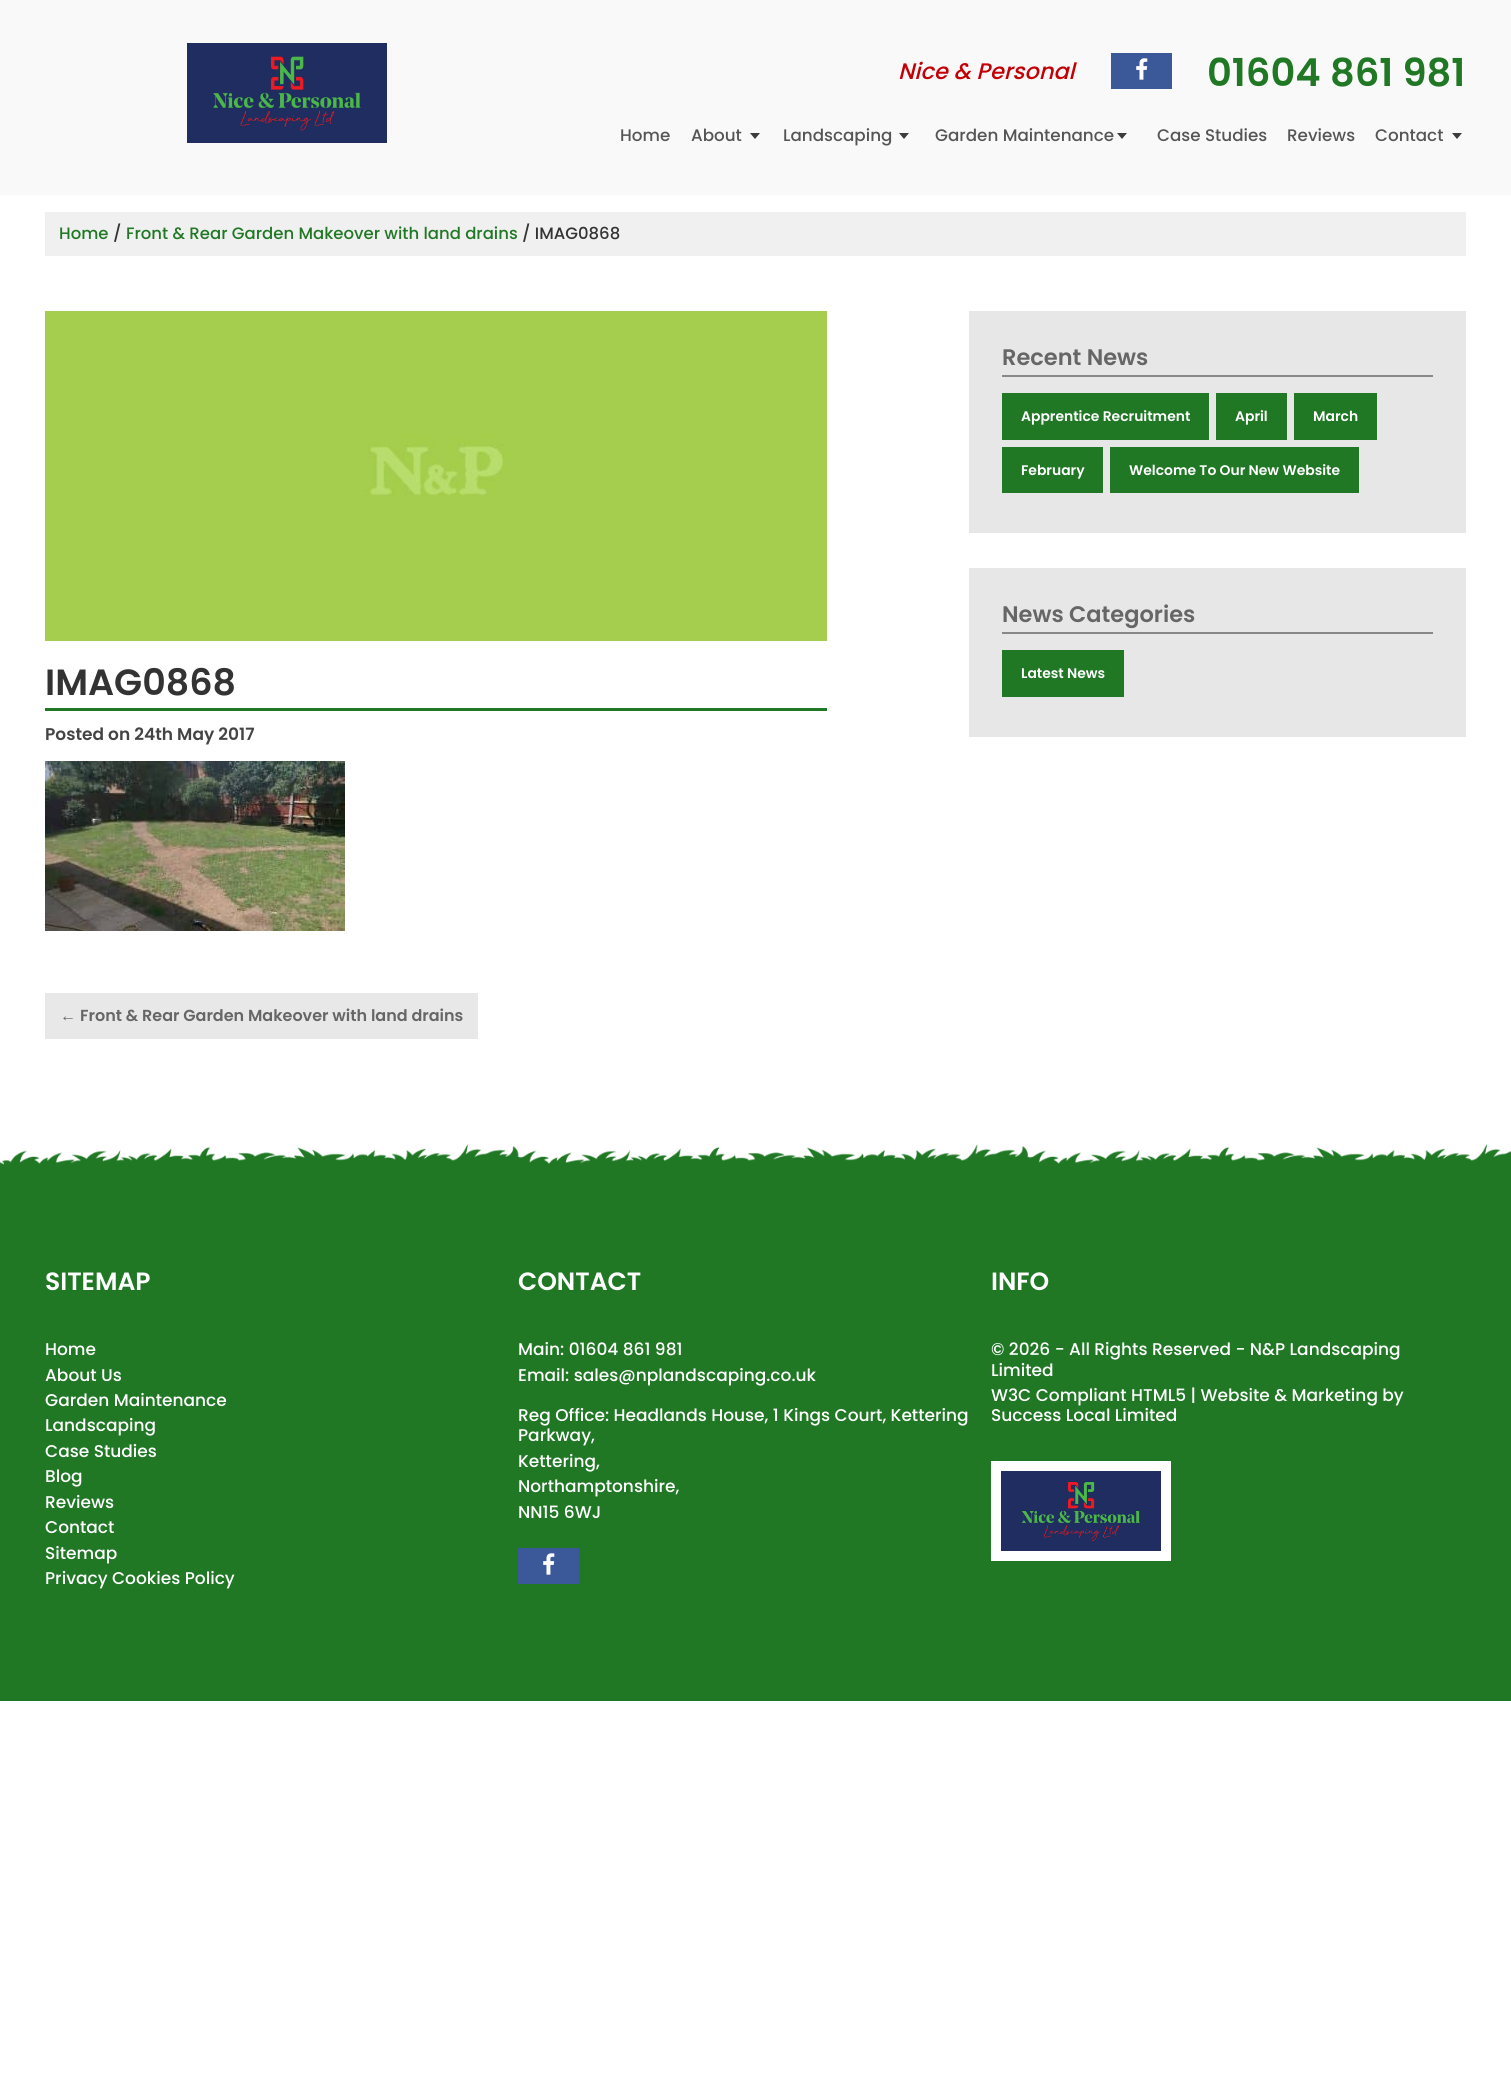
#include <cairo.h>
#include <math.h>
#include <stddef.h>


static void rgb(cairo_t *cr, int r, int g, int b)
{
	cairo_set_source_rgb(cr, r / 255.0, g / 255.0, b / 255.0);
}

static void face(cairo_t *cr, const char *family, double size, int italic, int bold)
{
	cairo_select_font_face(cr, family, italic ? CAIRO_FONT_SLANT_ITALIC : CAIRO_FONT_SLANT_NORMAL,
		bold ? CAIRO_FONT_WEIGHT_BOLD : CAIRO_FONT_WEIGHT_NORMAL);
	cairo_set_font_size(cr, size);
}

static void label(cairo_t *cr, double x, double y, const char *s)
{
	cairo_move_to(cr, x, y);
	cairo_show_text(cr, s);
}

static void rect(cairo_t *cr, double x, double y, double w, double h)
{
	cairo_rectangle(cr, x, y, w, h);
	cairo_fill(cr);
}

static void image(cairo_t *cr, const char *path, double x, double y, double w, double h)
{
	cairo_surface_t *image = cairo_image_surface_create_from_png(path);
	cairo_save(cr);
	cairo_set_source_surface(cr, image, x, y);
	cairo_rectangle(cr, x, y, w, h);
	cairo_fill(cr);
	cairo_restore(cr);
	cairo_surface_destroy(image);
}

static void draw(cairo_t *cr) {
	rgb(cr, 255, 255, 255);
	cairo_paint(cr);
	rgb(cr, 249, 249, 249);
	rect(cr, 0, 0, 1511, 195);
	image(cr, "image0.png", 187, 43, 200, 100);
	face(cr, "Poppins Medium", 22.5, 1, 0);
	rgb(cr, 195, 0, 5);
	label(cr, 898, 79, "Nice & Personal");
	rgb(cr, 59, 89, 152);
	rect(cr, 1111, 53, 61, 36);
	image(cr, "image1.png", 1136, 58, 12, 22);
	face(cr, "Poppins SemiBold", 38.5, 0, 0);
	rgb(cr, 32, 120, 37);
	label(cr, 1207, 86, "01604 861 981");
	face(cr, "Poppins Medium", 16.75, 0, 0);
	rgb(cr, 85, 85, 85);
	label(cr, 620, 141, "Home");
	image(cr, "image2.png", 750, 133, 10, 6);
	label(cr, 691, 141, "About");
	image(cr, "image2.png", 899, 133, 10, 6);
	label(cr, 783, 141, "Landscaping");
	image(cr, "image2.png", 1117, 133, 10, 6);
	label(cr, 935, 141, "Garden Maintenance");
	label(cr, 1157, 141, "Case Studies");
	label(cr, 1287, 141, "Reviews");
	image(cr, "image2.png", 1452, 133, 10, 6);
	label(cr, 1375, 141, "Contact");
	rgb(cr, 240, 240, 240);
	rect(cr, 45, 212, 1421, 44);
	face(cr, "Poppins Medium", 16.5, 0, 0);
	rgb(cr, 32, 120, 37);
	label(cr, 59, 239, "Home");
	rgb(cr, 51, 51, 51);
	label(cr, 113, 239, "/");
	rgb(cr, 32, 120, 37);
	label(cr, 126, 239, "Front & Rear Garden Makeover with land drains");
	rgb(cr, 51, 51, 51);
	label(cr, 522, 239, "/ IMAG0868");
	rgb(cr, 231, 231, 231);
	rect(cr, 969, 311, 497, 222);
	rgb(cr, 136, 136, 136);
	rect(cr, 1002, 375, 431, 2);
	face(cr, "Poppins SemiBold", 22.5, 0, 0);
	rgb(cr, 102, 102, 102);
	label(cr, 1002, 365, "Recent News");
	rgb(cr, 32, 120, 37);
	rect(cr, 1002, 393, 207, 47);
	face(cr, "Poppins SemiBold", 13.9, 0, 0);
	rgb(cr, 255, 255, 255);
	label(cr, 1021, 421, "Apprentice Recruitment");
	rgb(cr, 32, 120, 37);
	rect(cr, 1216, 393, 71, 47);
	rgb(cr, 255, 255, 255);
	label(cr, 1235, 421, "April");
	rgb(cr, 32, 120, 37);
	rect(cr, 1294, 393, 83, 47);
	rgb(cr, 255, 255, 255);
	label(cr, 1313, 421, "March");
	rgb(cr, 32, 120, 37);
	rect(cr, 1002, 447, 101, 46);
	rgb(cr, 255, 255, 255);
	label(cr, 1021, 475, "February");
	rgb(cr, 32, 120, 37);
	rect(cr, 1110, 447, 249, 46);
	rgb(cr, 255, 255, 255);
	label(cr, 1129, 475, "Welcome To Our New Website");
	rgb(cr, 231, 231, 231);
	rect(cr, 969, 568, 497, 169);
	rgb(cr, 136, 136, 136);
	rect(cr, 1002, 632, 431, 2);
	face(cr, "Poppins SemiBold", 22.5, 0, 0);
	rgb(cr, 102, 102, 102);
	label(cr, 1002, 622, "News Categories");
	rgb(cr, 32, 120, 37);
	rect(cr, 1002, 650, 122, 47);
	face(cr, "Poppins SemiBold", 13.9, 0, 0);
	rgb(cr, 255, 255, 255);
	label(cr, 1021, 678, "Latest News");
	image(cr, "image3.png", 45, 311, 782, 330);
	rgb(cr, 32, 120, 37);
	rect(cr, 45, 708, 782, 3);
	face(cr, "Poppins SemiBold", 36.5, 0, 0);
	rgb(cr, 51, 51, 51);
	label(cr, 45, 695, "IMAG0868");
	face(cr, "Poppins SemiBold", 17, 0, 0);
	rgb(cr, 68, 68, 68);
	label(cr, 45, 740, "Posted on 24th May 2017");
	image(cr, "image4.png", 45, 761, 300, 170);
	rgb(cr, 232, 232, 232);
	rect(cr, 45, 993, 433, 46);
	face(cr, "Liberation Sans", 16, 0, 1);
	rgb(cr, 102, 102, 102);
	label(cr, 60, 1021, "←");
	face(cr, "Poppins SemiBold", 16, 0, 0);
	label(cr, 80, 1021, "Front & Rear Garden Makeover with land drains");
	image(cr, "image5.png", 0, 1144, 1511, 33);
	rgb(cr, 32, 120, 37);
	rect(cr, 0, 1177, 1511, 524);
	face(cr, "Poppins SemiBold", 25, 0, 0);
	rgb(cr, 255, 255, 255);
	label(cr, 45, 1290, "SITEMAP");
	face(cr, "Poppins Medium", 17, 0, 0);
	label(cr, 45, 1355, "Home");
	label(cr, 45, 1381, "About Us");
	label(cr, 45, 1406, "Garden Maintenance");
	label(cr, 45, 1431, "Landscaping");
	label(cr, 45, 1457, "Case Studies");
	label(cr, 45, 1482, "Blog");
	label(cr, 45, 1508, "Reviews");
	label(cr, 45, 1533, "Contact");
	label(cr, 45, 1559, "Sitemap");
	label(cr, 45, 1584, "Privacy Cookies Policy");
	face(cr, "Poppins SemiBold", 25, 0, 0);
	label(cr, 518, 1290, "CONTACT");
	face(cr, "Poppins Medium", 17, 0, 0);
	label(cr, 518, 1355, "Main: 01604 861 981");
	label(cr, 518, 1381, "Email: sales@nplandscaping.co.uk");
	label(cr, 518, 1421, "Reg Office: Headlands House, 1 Kings Court, Kettering");
	label(cr, 518, 1441, "Parkway,");
	label(cr, 518, 1467, "Kettering,");
	label(cr, 518, 1492, "Northamptonshire,");
	label(cr, 518, 1518, "NN15 6WJ");
	rgb(cr, 59, 89, 152);
	rect(cr, 518, 1548, 61, 36);
	image(cr, "image1.png", 543, 1553, 12, 22);
	face(cr, "Poppins SemiBold", 25, 0, 0);
	rgb(cr, 255, 255, 255);
	label(cr, 991, 1290, "INFO");
	face(cr, "Poppins Medium", 17, 0, 0);
	label(cr, 991, 1355, "© 2026 - All Rights Reserved - N&P Landscaping");
	label(cr, 991, 1376, "Limited");
	label(cr, 991, 1401, "W3C Compliant HTML5 | Website & Marketing by");
	label(cr, 991, 1421, "Success Local Limited");
	rect(cr, 991, 1461, 180, 100);
	image(cr, "image6.png", 1001, 1471, 160, 80);
}

int main(void) {
	cairo_surface_t *surface = cairo_image_surface_create(CAIRO_FORMAT_RGB24, 1511, 2093);
	cairo_t *cr = cairo_create(surface);
	cairo_font_options_t *options = cairo_font_options_create();
	cairo_font_options_set_hint_metrics(options, CAIRO_HINT_METRICS_OFF);
	cairo_font_options_set_hint_style(options, CAIRO_HINT_STYLE_NONE);
	cairo_set_font_options(cr, options);
	cairo_set_miter_limit(cr, 4);
	draw(cr);
	cairo_surface_write_to_png(surface, "render.png");
	cairo_font_options_destroy(options);
	cairo_destroy(cr);
	cairo_surface_destroy(surface);
	return 0;
}
